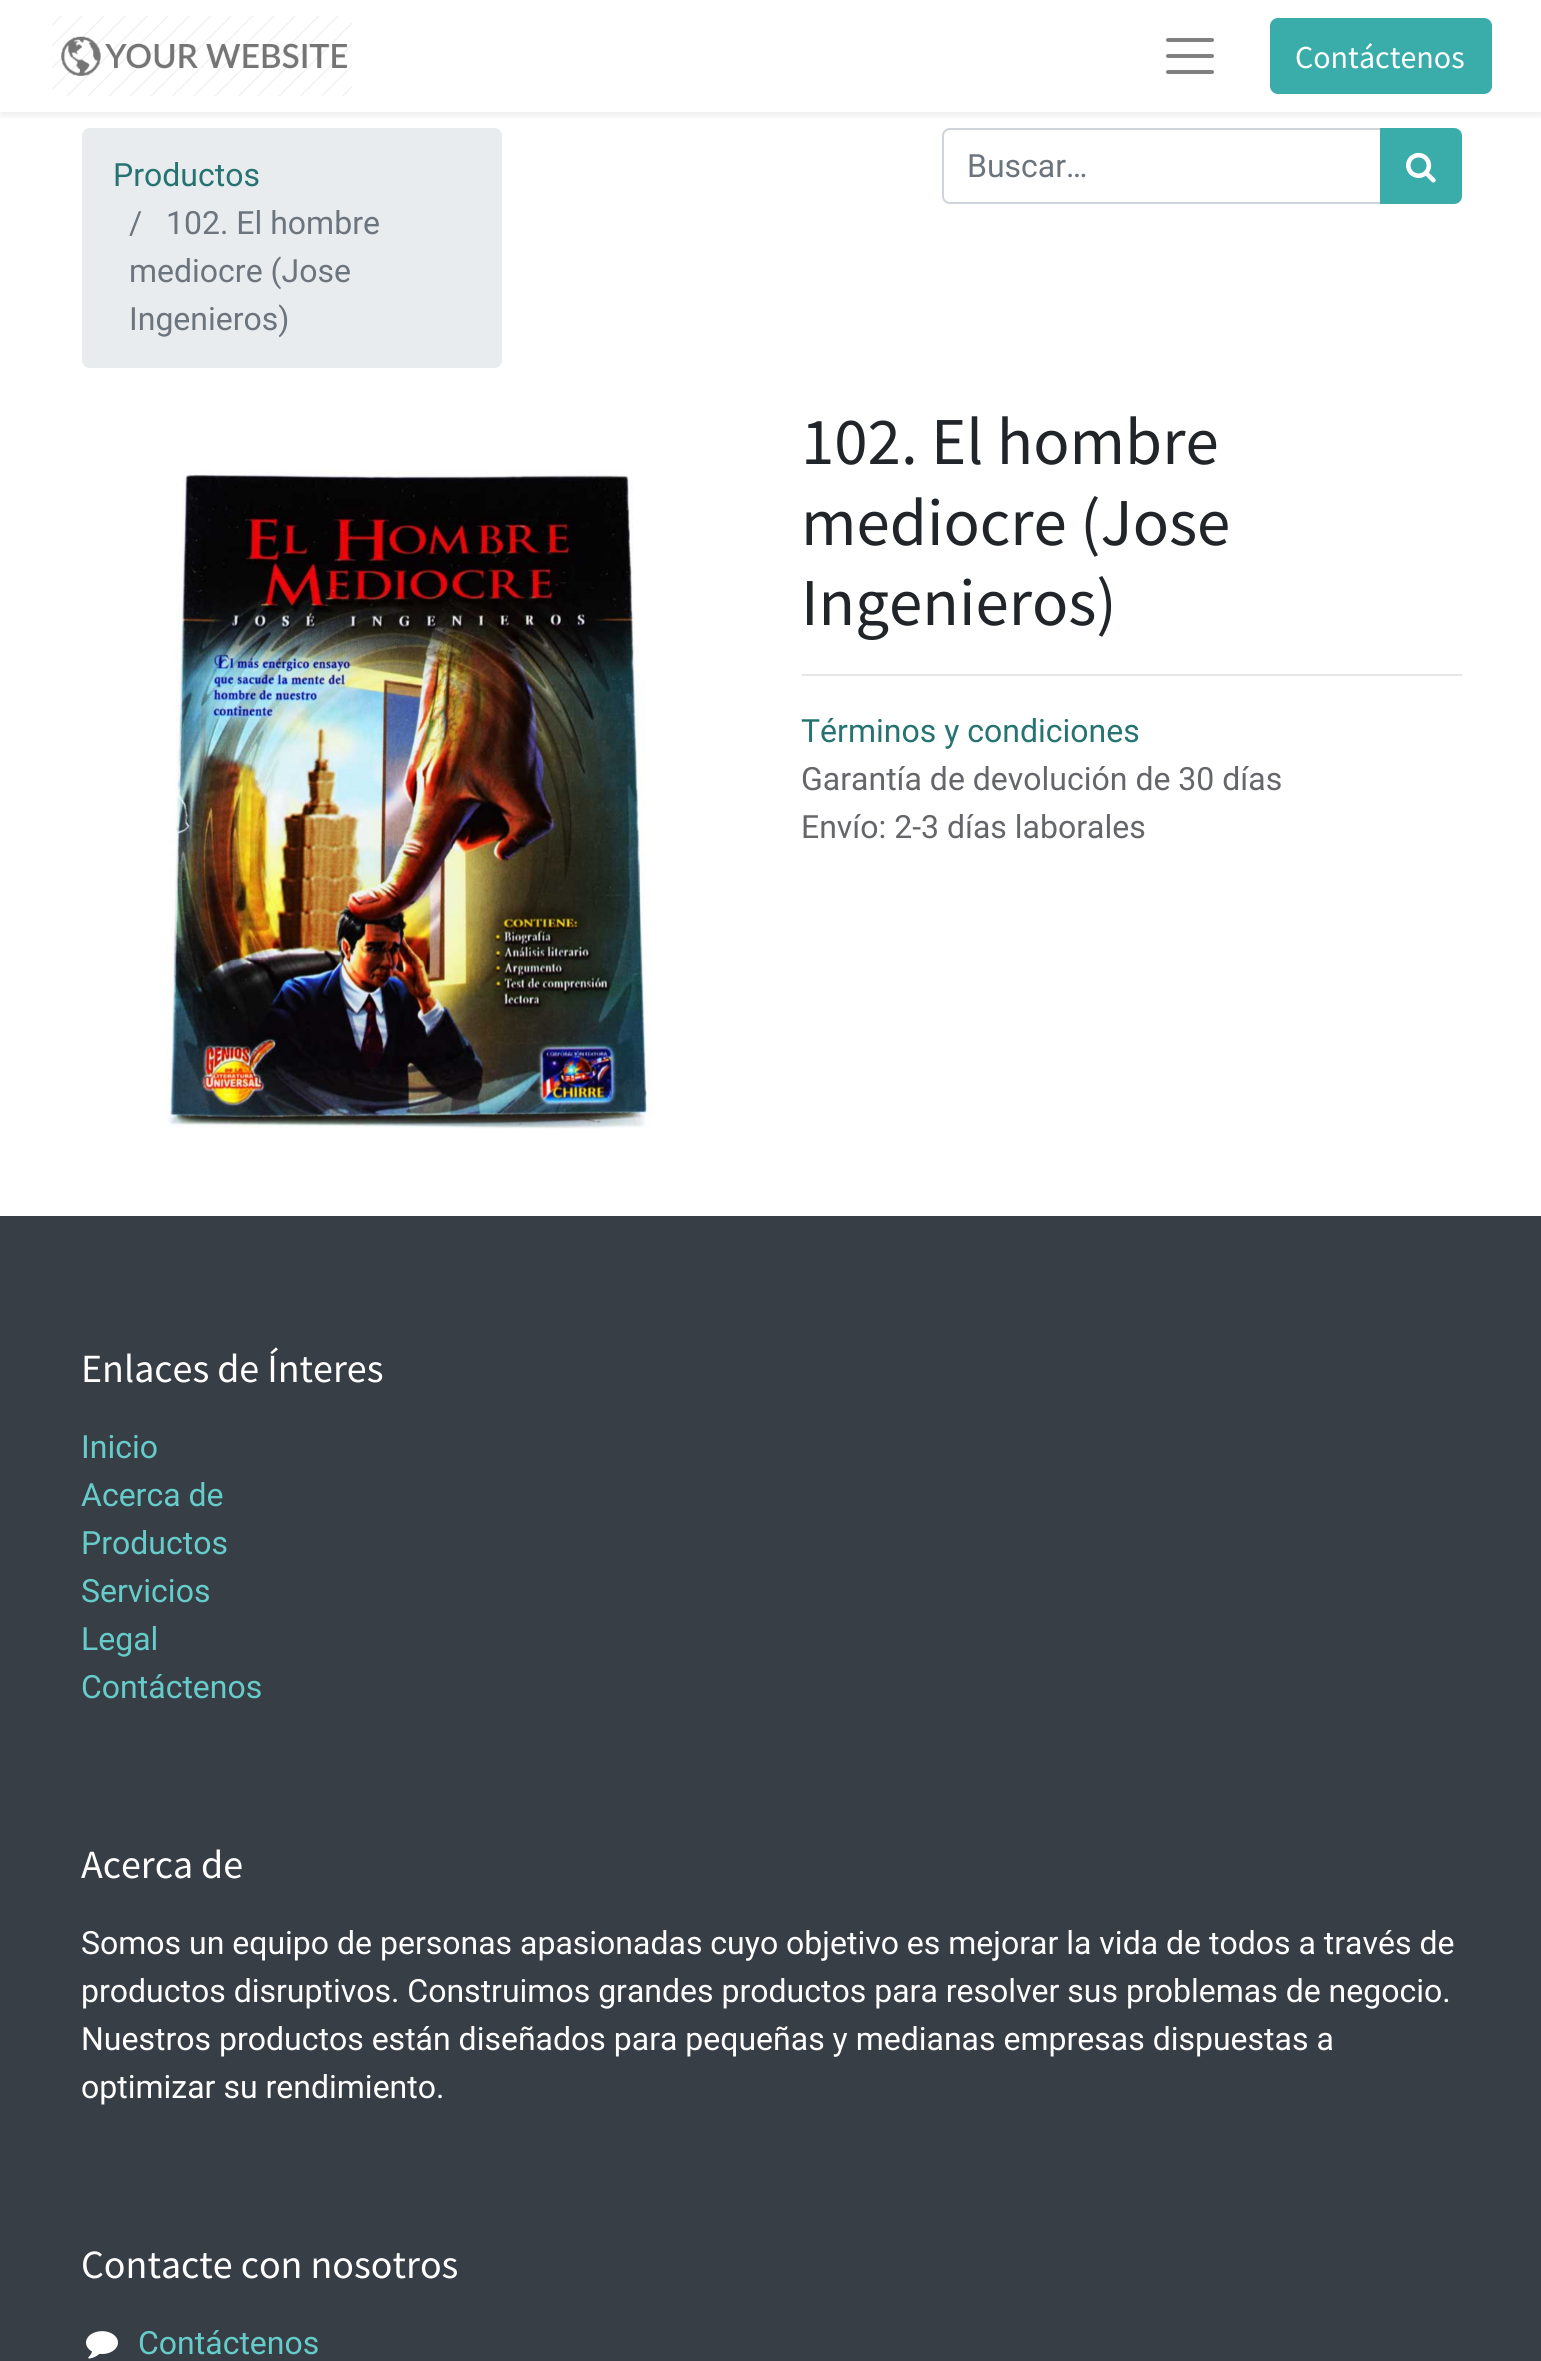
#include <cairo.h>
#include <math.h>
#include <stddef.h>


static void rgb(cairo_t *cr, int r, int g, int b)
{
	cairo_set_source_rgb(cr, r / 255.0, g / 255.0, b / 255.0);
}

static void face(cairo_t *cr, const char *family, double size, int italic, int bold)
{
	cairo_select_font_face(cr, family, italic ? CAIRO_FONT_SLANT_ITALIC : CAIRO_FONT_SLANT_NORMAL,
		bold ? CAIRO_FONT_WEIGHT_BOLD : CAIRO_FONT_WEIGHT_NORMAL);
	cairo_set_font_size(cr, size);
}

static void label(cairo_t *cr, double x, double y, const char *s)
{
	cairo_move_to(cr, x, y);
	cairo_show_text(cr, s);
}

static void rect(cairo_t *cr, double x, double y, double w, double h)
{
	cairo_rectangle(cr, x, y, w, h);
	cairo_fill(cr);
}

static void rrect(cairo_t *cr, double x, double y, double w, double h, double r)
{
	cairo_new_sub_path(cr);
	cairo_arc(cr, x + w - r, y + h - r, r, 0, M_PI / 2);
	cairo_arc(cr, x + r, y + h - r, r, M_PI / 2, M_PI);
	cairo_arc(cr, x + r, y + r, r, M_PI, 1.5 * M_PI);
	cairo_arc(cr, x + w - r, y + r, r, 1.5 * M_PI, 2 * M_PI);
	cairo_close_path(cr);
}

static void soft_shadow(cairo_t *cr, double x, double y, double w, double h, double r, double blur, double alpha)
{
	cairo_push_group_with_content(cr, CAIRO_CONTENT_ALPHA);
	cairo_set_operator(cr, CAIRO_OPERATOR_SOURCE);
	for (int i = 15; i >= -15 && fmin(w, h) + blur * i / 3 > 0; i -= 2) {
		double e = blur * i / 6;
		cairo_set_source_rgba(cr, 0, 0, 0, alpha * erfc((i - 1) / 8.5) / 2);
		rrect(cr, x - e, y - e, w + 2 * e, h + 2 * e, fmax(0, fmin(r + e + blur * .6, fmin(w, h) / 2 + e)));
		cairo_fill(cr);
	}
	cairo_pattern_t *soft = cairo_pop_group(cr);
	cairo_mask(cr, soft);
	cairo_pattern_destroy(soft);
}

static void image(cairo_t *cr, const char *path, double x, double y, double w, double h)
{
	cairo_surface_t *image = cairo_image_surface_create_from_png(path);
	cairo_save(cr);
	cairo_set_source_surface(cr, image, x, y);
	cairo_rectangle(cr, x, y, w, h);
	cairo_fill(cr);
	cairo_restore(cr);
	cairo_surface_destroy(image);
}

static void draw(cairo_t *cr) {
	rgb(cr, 255, 255, 255);
	cairo_paint(cr);
	rgb(cr, 233, 236, 239);
	rrect(cr, 82, 128, 420, 240, 8);
	cairo_fill(cr);
	cairo_new_path(cr);
	cairo_move_to(cr, 950, 129);
	cairo_line_to(cr, 1381, 129);
	cairo_line_to(cr, 1381, 203);
	cairo_line_to(cr, 950, 203);
	cairo_curve_to(cr, 946, 203, 943, 200, 943, 196);
	cairo_line_to(cr, 943, 136);
	cairo_curve_to(cr, 943, 132, 946, 129, 950, 129);
	cairo_close_path(cr);
	rgb(cr, 206, 212, 218);
	cairo_stroke(cr);
	rgb(cr, 58, 173, 170);
	cairo_new_path(cr);
	cairo_move_to(cr, 1381, 129);
	cairo_line_to(cr, 1454, 129);
	cairo_curve_to(cr, 1458, 129, 1461, 132, 1461, 136);
	cairo_line_to(cr, 1461, 196);
	cairo_curve_to(cr, 1461, 200, 1458, 203, 1454, 203);
	cairo_line_to(cr, 1381, 203);
	cairo_close_path(cr);
	cairo_fill_preserve(cr);
	cairo_stroke(cr);
	cairo_save(cr);
	cairo_rectangle(cr, 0, 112, 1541, 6);
	cairo_clip(cr);
	rgb(cr, 0, 0, 0);
	soft_shadow(cr, 0, 4, 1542, 112, 0, 4, 0.07);
	cairo_restore(cr);
	image(cr, "image0.png", 52, 16, 300, 80);
	cairo_new_path(cr);
	cairo_move_to(cr, 1168, 40);
	cairo_line_to(cr, 1212, 40);
	cairo_move_to(cr, 1168, 56);
	cairo_line_to(cr, 1212, 56);
	cairo_move_to(cr, 1168, 72);
	cairo_line_to(cr, 1212, 72);
	rgb(cr, 128, 128, 128);
	cairo_set_line_width(cr, 4);
	cairo_set_line_cap(cr, CAIRO_LINE_CAP_ROUND);
	cairo_stroke(cr);
	rgb(cr, 58, 173, 170);
	rrect(cr, 1271, 19, 220, 74, 7);
	cairo_fill_preserve(cr);
	cairo_set_line_width(cr, 2);
	cairo_set_line_cap(cr, CAIRO_LINE_CAP_BUTT);
	cairo_stroke(cr);
	face(cr, "Source Sans Pro", 32, 0, 0);
	rgb(cr, 255, 255, 255);
	label(cr, 1295, 68, "Contáctenos");
	face(cr, "Roboto", 32, 0, 0);
	rgb(cr, 38, 115, 114);
	label(cr, 113, 186, "Productos");
	rgb(cr, 108, 117, 125);
	label(cr, 129, 234, "/");
	label(cr, 166, 234, "102. El hombre");
	label(cr, 129, 282, "mediocre (Jose");
	label(cr, 129, 330, "Ingenieros)");
	label(cr, 967, 177, "Buscar…");
	image(cr, "image1.png", 1406, 152, 30, 31);
	image(cr, "image2.png", 164, 470, 490, 659);
	face(cr, "Source Sans Pro", 67, 0, 0);
	rgb(cr, 33, 37, 41);
	label(cr, 801, 464, "102. El hombre");
	label(cr, 801, 545, "mediocre (Jose");
	label(cr, 801, 625, "Ingenieros)");
	rgb(cr, 230, 230, 230);
	rect(cr, 802, 674, 660, 2);
	face(cr, "Roboto", 32, 0, 0);
	rgb(cr, 38, 115, 114);
	label(cr, 801, 742, "Términos y condiciones");
	rgb(cr, 100, 102, 105);
	label(cr, 801, 790, "Garantía de devolución de 30 días");
	label(cr, 801, 838, "Envío: 2-3 días laborales");
	rgb(cr, 56, 62, 69);
	rect(cr, 0, 1216, 1541, 1145);
	face(cr, "Source Sans Pro", 40, 0, 0);
	rgb(cr, 255, 255, 255);
	label(cr, 81, 1382, "Enlaces de Ínteres");
	face(cr, "Roboto", 32, 0, 0);
	rgb(cr, 102, 204, 202);
	label(cr, 81, 1458, "Inicio");
	label(cr, 81, 1506, "Acerca de");
	label(cr, 81, 1554, "Productos");
	label(cr, 81, 1602, "Servicios");
	label(cr, 81, 1650, "Legal");
	label(cr, 81, 1698, "Contáctenos");
	face(cr, "Source Sans Pro", 40, 0, 0);
	rgb(cr, 255, 255, 255);
	label(cr, 81, 1878, "Acerca de");
	face(cr, "Roboto", 32, 0, 0);
	label(cr, 81, 1954, "Somos un equipo de personas apasionadas cuyo objetivo es mejorar la vida de todos a través de");
	label(cr, 81, 2002, "productos disruptivos. Construimos grandes productos para resolver sus problemas de negocio.");
	label(cr, 81, 2050, "Nuestros productos están diseñados para pequeñas y medianas empresas dispuestas a");
	label(cr, 81, 2098, "optimizar su rendimiento.");
	face(cr, "Source Sans Pro", 40, 0, 0);
	label(cr, 81, 2278, "Contacte con nosotros");
	image(cr, "image3.png", 86, 2331, 32, 28);
	face(cr, "Roboto", 32, 0, 0);
	rgb(cr, 102, 204, 202);
	label(cr, 138, 2354, "Contáctenos");
}

int main(void) {
	cairo_surface_t *surface = cairo_image_surface_create(CAIRO_FORMAT_RGB24, 1541, 2361);
	cairo_t *cr = cairo_create(surface);
	cairo_font_options_t *options = cairo_font_options_create();
	cairo_font_options_set_hint_metrics(options, CAIRO_HINT_METRICS_OFF);
	cairo_font_options_set_hint_style(options, CAIRO_HINT_STYLE_NONE);
	cairo_set_font_options(cr, options);
	cairo_set_miter_limit(cr, 4);
	draw(cr);
	cairo_surface_write_to_png(surface, "render.png");
	cairo_font_options_destroy(options);
	cairo_destroy(cr);
	cairo_surface_destroy(surface);
	return 0;
}
